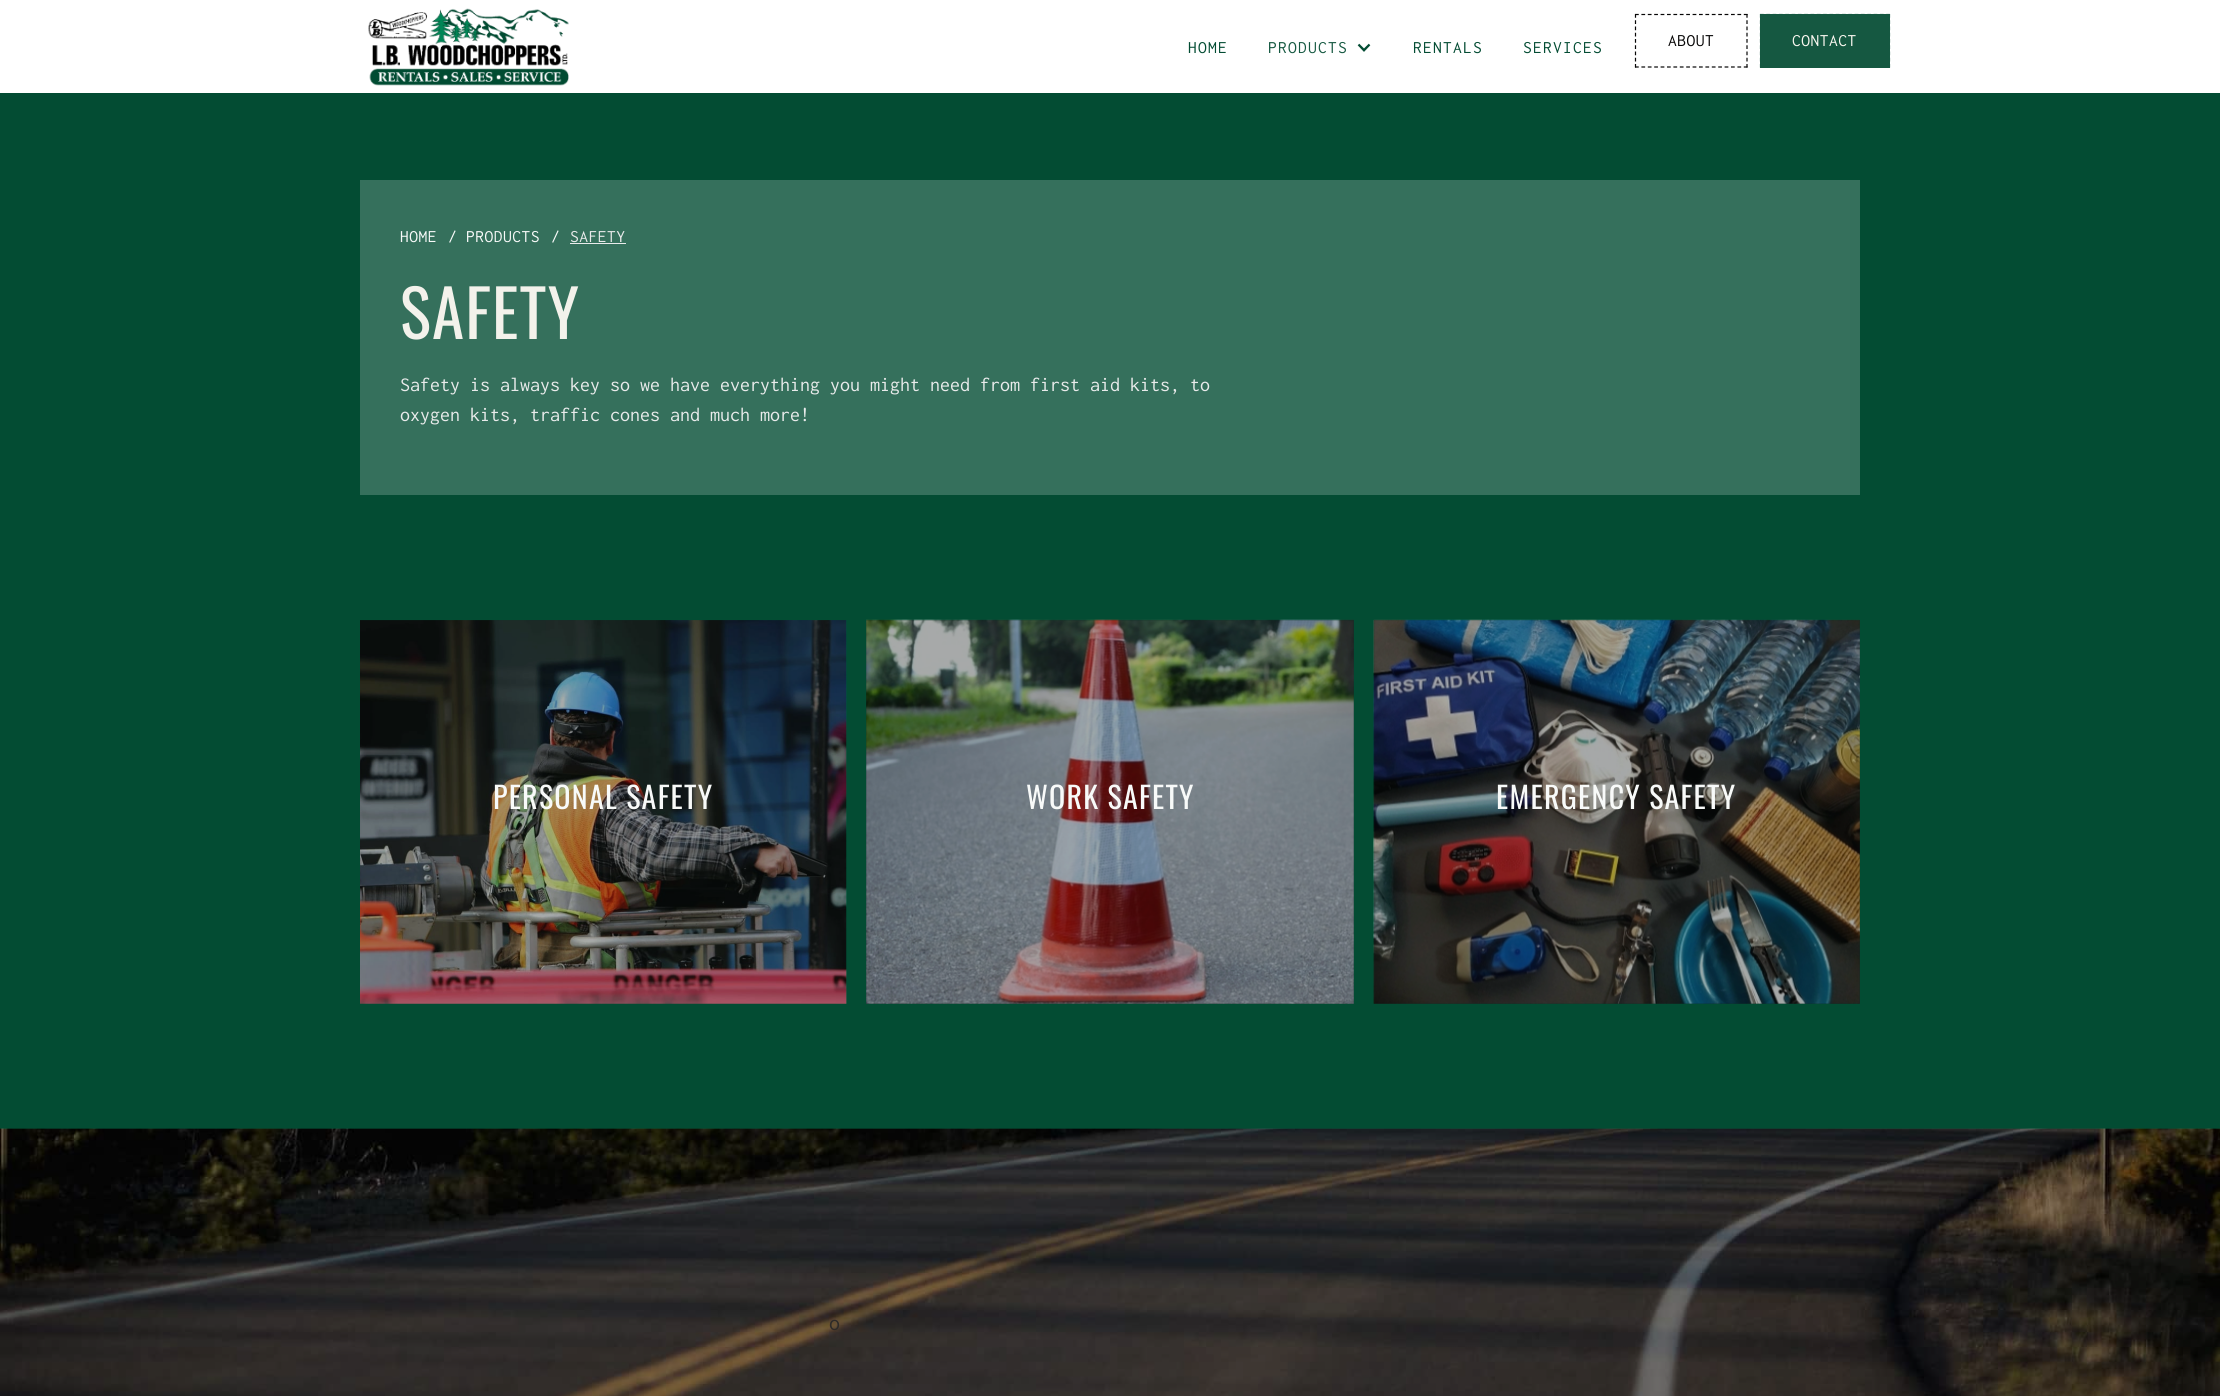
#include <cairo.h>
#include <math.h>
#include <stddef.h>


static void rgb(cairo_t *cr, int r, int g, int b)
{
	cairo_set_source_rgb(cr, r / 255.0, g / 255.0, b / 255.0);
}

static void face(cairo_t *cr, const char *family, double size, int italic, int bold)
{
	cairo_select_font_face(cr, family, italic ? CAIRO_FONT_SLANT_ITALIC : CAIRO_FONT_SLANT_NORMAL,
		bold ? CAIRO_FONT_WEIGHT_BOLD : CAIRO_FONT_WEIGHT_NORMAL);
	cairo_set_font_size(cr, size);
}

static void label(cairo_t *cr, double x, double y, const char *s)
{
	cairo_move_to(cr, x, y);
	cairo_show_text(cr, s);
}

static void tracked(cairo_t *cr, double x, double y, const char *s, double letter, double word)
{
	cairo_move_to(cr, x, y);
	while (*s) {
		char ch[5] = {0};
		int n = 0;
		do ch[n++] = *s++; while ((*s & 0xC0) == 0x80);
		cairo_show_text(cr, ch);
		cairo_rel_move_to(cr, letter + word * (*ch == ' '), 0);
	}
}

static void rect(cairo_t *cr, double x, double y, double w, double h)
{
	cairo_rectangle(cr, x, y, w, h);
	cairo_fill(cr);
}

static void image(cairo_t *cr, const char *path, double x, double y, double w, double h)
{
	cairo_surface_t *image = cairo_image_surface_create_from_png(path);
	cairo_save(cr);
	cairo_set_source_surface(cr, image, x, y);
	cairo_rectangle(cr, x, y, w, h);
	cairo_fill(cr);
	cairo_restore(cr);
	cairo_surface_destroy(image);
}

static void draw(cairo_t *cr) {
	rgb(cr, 3, 76, 51);
	cairo_paint(cr);
	rgb(cr, 7, 55, 39);
	rect(cr, 1374, 620, 486, 384);
	rect(cr, 866, 620, 488, 384);
	rgb(cr, 255, 255, 255);
	rect(cr, 0, 0, 2220, 93);
	image(cr, "image0.png", 368, 8, 201, 78);
	face(cr, "Inconsolata", 17.5, 0, 0);
	rgb(cr, 3, 76, 51);
	tracked(cr, 1188, 53, "HOME", 1.25, 0);
	rgb(cr, 21, 88, 65);
	tracked(cr, 1268, 53, "PRODUCTS", 1.25, 0);
	image(cr, "image1.png", 1357, 43, 14, 9);
	rgb(cr, 3, 76, 51);
	tracked(cr, 1413, 53, "RENTALS", 1.25, 0);
	tracked(cr, 1523, 53, "SERVICES", 1.25, 0);
	cairo_new_path(cr);
	cairo_move_to(cr, 1635, 14.5);
	cairo_line_to(cr, 1747.5, 14.5);
	rgb(cr, 7, 6, 6);
	cairo_set_line_width(cr, 1.2);
	cairo_set_dash(cr, (double[]){3.75, 2.65}, 2, 0);
	cairo_stroke(cr);
	cairo_new_path(cr);
	cairo_move_to(cr, 1747, 14);
	cairo_line_to(cr, 1747, 67.5);
	cairo_set_dash(cr, (double[]){3.75, 2.5}, 2, 0);
	cairo_stroke(cr);
	cairo_new_path(cr);
	cairo_move_to(cr, 1635, 67);
	cairo_line_to(cr, 1747.5, 67);
	cairo_set_dash(cr, (double[]){3.75, 2.65}, 2, 0);
	cairo_stroke(cr);
	cairo_new_path(cr);
	cairo_move_to(cr, 1635.5, 14);
	cairo_line_to(cr, 1635.5, 67.5);
	cairo_set_dash(cr, (double[]){3.75, 2.5}, 2, 0);
	cairo_stroke(cr);
	tracked(cr, 1668, 46, "ABOUT", 0.5, 0);
	rgb(cr, 21, 88, 65);
	rect(cr, 1760, 14, 130, 54);
	cairo_new_path(cr);
	cairo_move_to(cr, 1760, 14.5);
	cairo_line_to(cr, 1890, 14.5);
	cairo_set_dash(cr, (double[]){3.75, 2.56}, 2, 0);
	cairo_stroke(cr);
	cairo_new_path(cr);
	cairo_move_to(cr, 1889.5, 14);
	cairo_line_to(cr, 1889.5, 67.5);
	cairo_set_dash(cr, (double[]){3.75, 2.5}, 2, 0);
	cairo_stroke(cr);
	cairo_new_path(cr);
	cairo_move_to(cr, 1760.5, 14);
	cairo_line_to(cr, 1760.5, 67.5);
	cairo_stroke(cr);
	rgb(cr, 250, 247, 240);
	tracked(cr, 1792, 46, "CONTACT", 0.5, 0);
	rgb(cr, 53, 112, 92);
	rect(cr, 360, 180, 1500, 315);
	rgb(cr, 248, 250, 249);
	tracked(cr, 400, 242, "HOME", 0.5, 0);
	label(cr, 448, 242, "/");
	tracked(cr, 466, 242, "PRODUCTS", 0.5, 0);
	label(cr, 551, 242, "/");
	rgb(cr, 233, 235, 235);
	tracked(cr, 570, 242, "SAFETY", 0.5, 0);
	rect(cr, 570, 243, 56, 1);
	face(cr, "Oswald", 65, 0, 0);
	rgb(cr, 243, 242, 235);
	tracked(cr, 400, 339, "SAFETY", 1.25, 0);
	face(cr, "Inconsolata", 20, 0, 0);
	rgb(cr, 233, 235, 235);
	label(cr, 400, 391, "Safety is always key so we have everything you might need from first aid kits, to");
	label(cr, 400, 421, "oxygen kits, traffic cones and much more!");
	image(cr, "image2.png", 360, 620, 487, 384);
	face(cr, "Oswald", 30, 0, 0);
	rgb(cr, 248, 250, 249);
	tracked(cr, 493, 809, "PERSONAL SAFETY", 1.25, 0);
	image(cr, "image3.png", 866, 619, 488, 385);
	tracked(cr, 1026, 809, "WORK SAFETY", 1.25, 0);
	image(cr, "image4.png", 1373, 619, 487, 385);
	tracked(cr, 1496, 809, "EMERGENCY SAFETY", 1.25, 0);
	image(cr, "image5.png", 0, 1128, 2220, 268);
	face(cr, "Inconsolata", 22, 0, 0);
	rgb(cr, 45, 42, 40);
	label(cr, 829, 1330, "o");
}

int main(void) {
	cairo_surface_t *surface = cairo_image_surface_create(CAIRO_FORMAT_RGB24, 2220, 1396);
	cairo_t *cr = cairo_create(surface);
	cairo_font_options_t *options = cairo_font_options_create();
	cairo_font_options_set_hint_metrics(options, CAIRO_HINT_METRICS_OFF);
	cairo_font_options_set_hint_style(options, CAIRO_HINT_STYLE_NONE);
	cairo_set_font_options(cr, options);
	cairo_set_miter_limit(cr, 4);
	draw(cr);
	cairo_surface_write_to_png(surface, "render.png");
	cairo_font_options_destroy(options);
	cairo_destroy(cr);
	cairo_surface_destroy(surface);
	return 0;
}
